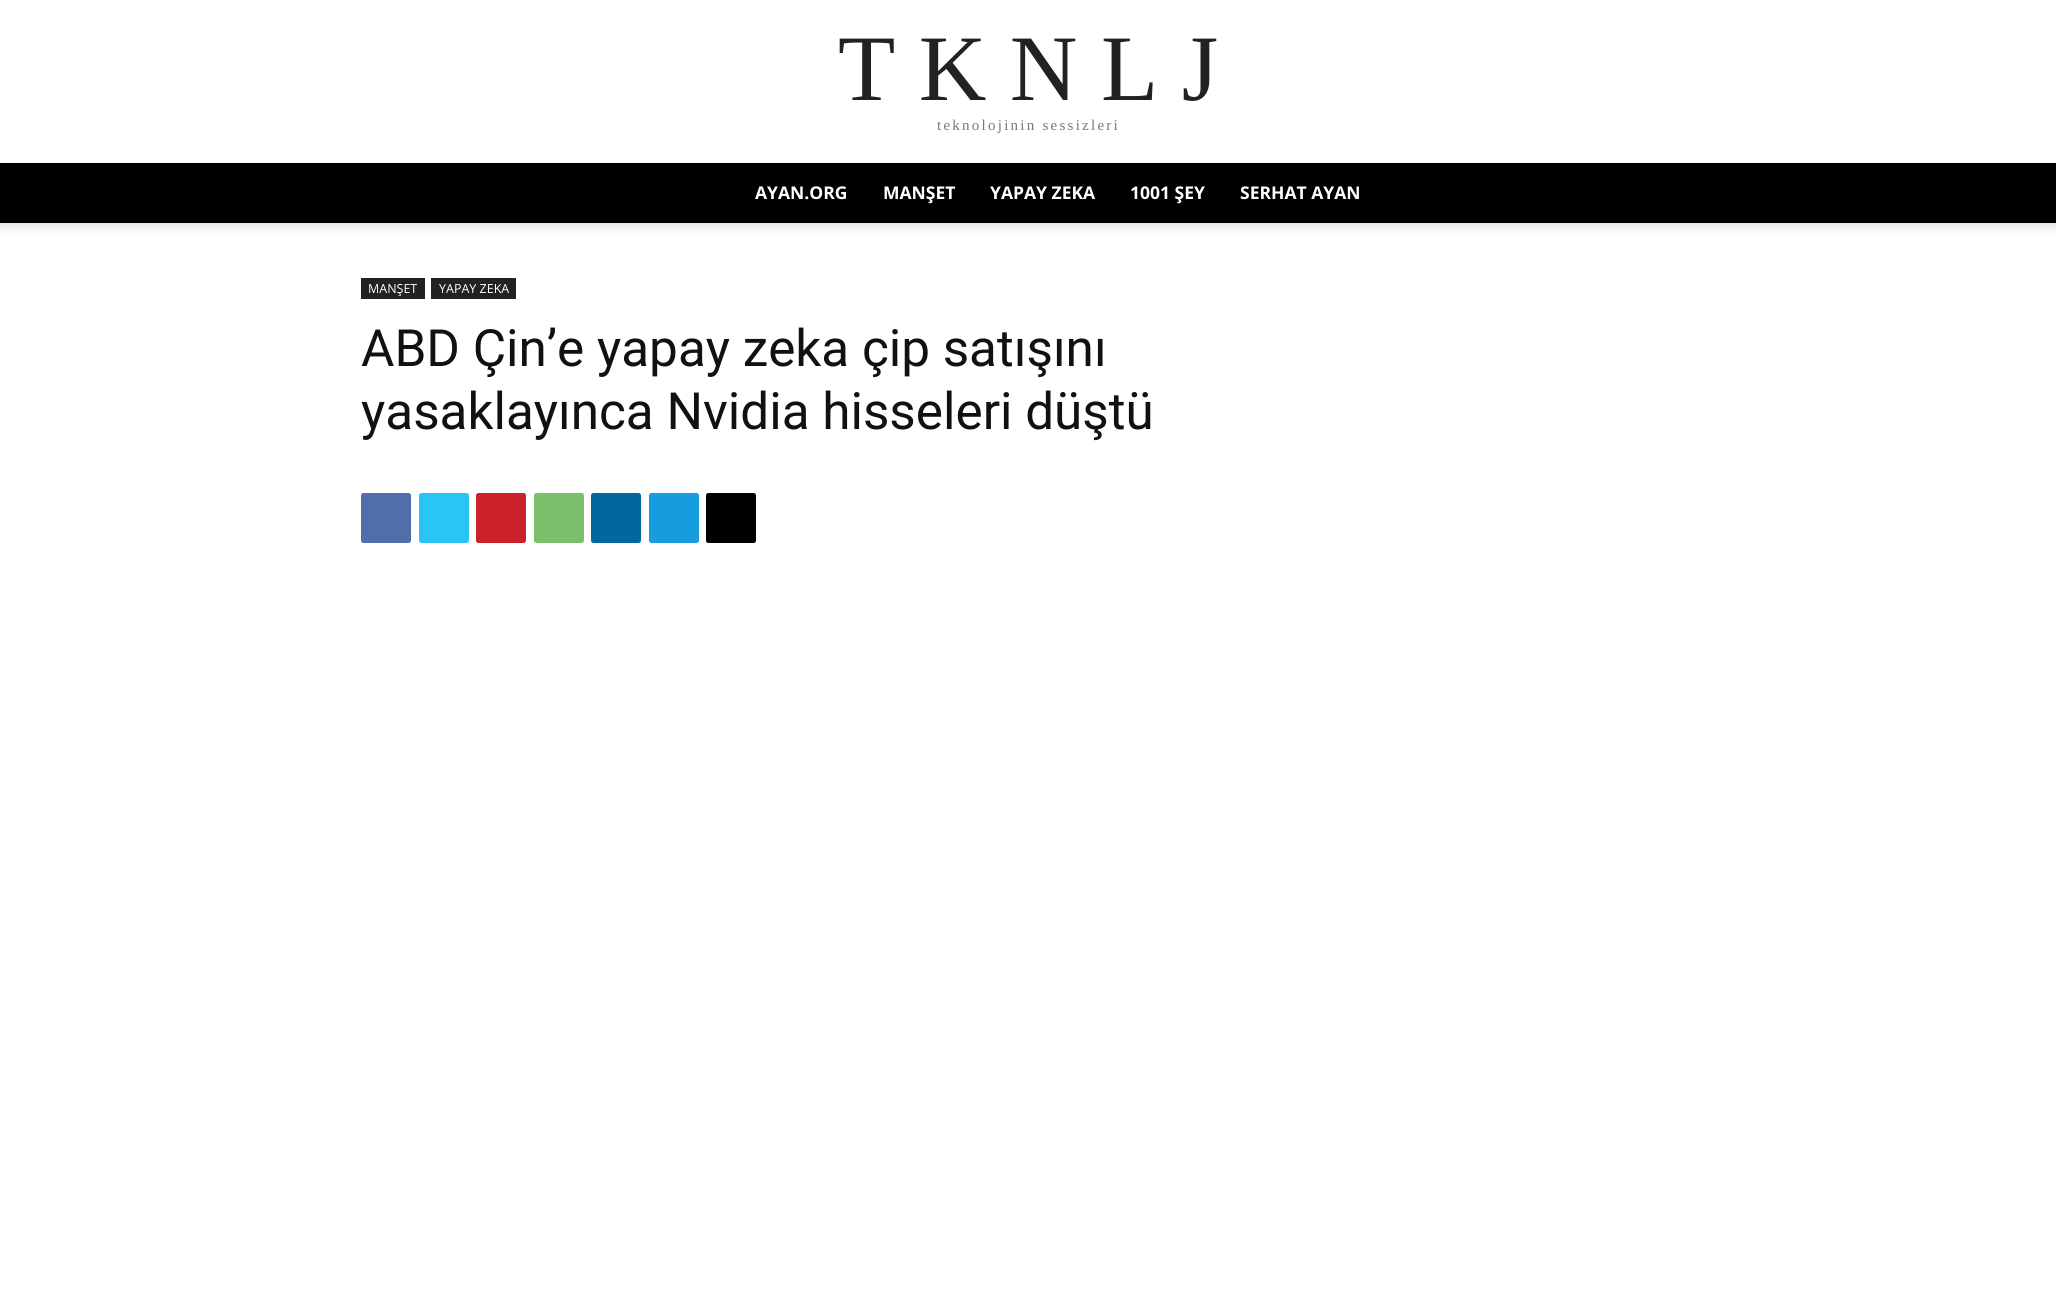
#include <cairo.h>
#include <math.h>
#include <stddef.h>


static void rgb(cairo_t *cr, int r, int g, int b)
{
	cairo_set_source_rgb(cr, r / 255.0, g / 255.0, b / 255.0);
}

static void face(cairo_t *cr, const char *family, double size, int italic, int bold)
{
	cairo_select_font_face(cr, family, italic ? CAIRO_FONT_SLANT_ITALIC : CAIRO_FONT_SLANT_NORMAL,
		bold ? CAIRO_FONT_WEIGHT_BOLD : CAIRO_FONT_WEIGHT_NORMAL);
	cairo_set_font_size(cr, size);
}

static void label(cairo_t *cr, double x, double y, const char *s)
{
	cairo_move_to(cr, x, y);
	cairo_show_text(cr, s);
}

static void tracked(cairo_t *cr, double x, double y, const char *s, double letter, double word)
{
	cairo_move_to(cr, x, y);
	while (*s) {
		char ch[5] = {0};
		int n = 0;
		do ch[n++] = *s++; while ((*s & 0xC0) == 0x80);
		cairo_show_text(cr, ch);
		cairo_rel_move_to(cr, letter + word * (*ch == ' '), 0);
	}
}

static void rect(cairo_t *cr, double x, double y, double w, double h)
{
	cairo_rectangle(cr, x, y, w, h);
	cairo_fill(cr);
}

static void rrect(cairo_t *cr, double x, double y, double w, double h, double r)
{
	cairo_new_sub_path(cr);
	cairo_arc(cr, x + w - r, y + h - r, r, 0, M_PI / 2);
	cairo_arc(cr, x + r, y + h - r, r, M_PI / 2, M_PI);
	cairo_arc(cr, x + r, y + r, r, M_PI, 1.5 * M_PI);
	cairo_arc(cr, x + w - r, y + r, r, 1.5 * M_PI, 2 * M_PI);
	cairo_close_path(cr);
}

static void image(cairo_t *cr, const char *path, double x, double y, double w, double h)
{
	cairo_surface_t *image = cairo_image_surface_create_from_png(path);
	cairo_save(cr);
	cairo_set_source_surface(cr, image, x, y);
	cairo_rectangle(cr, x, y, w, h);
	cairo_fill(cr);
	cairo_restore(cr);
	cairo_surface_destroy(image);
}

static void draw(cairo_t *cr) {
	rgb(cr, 255, 255, 255);
	cairo_paint(cr);
	face(cr, "Liberation Serif", 93.75, 0, 0);
	rgb(cr, 34, 34, 34);
	label(cr, 838, 100, "T K N L J");
	face(cr, "Liberation Serif", 15, 0, 0);
	rgb(cr, 119, 119, 119);
	tracked(cr, 937, 130, "teknolojinin sessizleri", 2.25, 0);
	rgb(cr, 0, 0, 0);
	rect(cr, 0, 163, 2056, 60);
	face(cr, "Open Sans", 17.5, 0, 1);
	rgb(cr, 255, 255, 255);
	label(cr, 755, 199, "AYAN.ORG");
	label(cr, 883, 199, "MANŞET");
	label(cr, 990, 199, "YAPAY ZEKA");
	label(cr, 1130, 199, "1001 ŞEY");
	label(cr, 1240, 199, "SERHAT AYAN");
	image(cr, "image0.png", 0, 223, 2056, 10);
	rgb(cr, 34, 34, 34);
	rect(cr, 361, 278, 64, 21);
	face(cr, "Open Sans", 12.5, 0, 0);
	rgb(cr, 255, 255, 255);
	label(cr, 368, 293, "MANŞET");
	rgb(cr, 34, 34, 34);
	rect(cr, 431, 278, 85, 21);
	rgb(cr, 255, 255, 255);
	label(cr, 439, 293, "YAPAY ZEKA");
	face(cr, "Roboto", 51.25, 0, 0);
	rgb(cr, 17, 17, 17);
	label(cr, 361, 366, "ABD Çin’e yapay zeka çip satışını");
	label(cr, 361, 429, "yasaklayınca Nvidia hisseleri düştü");
	rgb(cr, 81, 110, 171);
	rrect(cr, 361, 493, 50, 50, 2.5);
	cairo_fill(cr);
	rgb(cr, 41, 197, 246);
	rrect(cr, 419, 493, 50, 50, 2.5);
	cairo_fill(cr);
	rgb(cr, 202, 33, 42);
	rrect(cr, 476, 493, 50, 50, 2.5);
	cairo_fill(cr);
	rgb(cr, 123, 191, 106);
	rrect(cr, 534, 493, 50, 50, 2.5);
	cairo_fill(cr);
	rgb(cr, 2, 102, 160);
	rrect(cr, 591, 493, 50, 50, 2.5);
	cairo_fill(cr);
	rgb(cr, 23, 156, 222);
	rrect(cr, 649, 493, 50, 50, 2.5);
	cairo_fill(cr);
	rgb(cr, 0, 0, 0);
	rrect(cr, 706, 493, 50, 50, 2.5);
	cairo_fill(cr);
}

int main(void) {
	cairo_surface_t *surface = cairo_image_surface_create(CAIRO_FORMAT_RGB24, 2056, 1293);
	cairo_t *cr = cairo_create(surface);
	cairo_font_options_t *options = cairo_font_options_create();
	cairo_font_options_set_hint_metrics(options, CAIRO_HINT_METRICS_OFF);
	cairo_font_options_set_hint_style(options, CAIRO_HINT_STYLE_NONE);
	cairo_set_font_options(cr, options);
	cairo_set_miter_limit(cr, 4);
	draw(cr);
	cairo_surface_write_to_png(surface, "render.png");
	cairo_font_options_destroy(options);
	cairo_destroy(cr);
	cairo_surface_destroy(surface);
	return 0;
}
